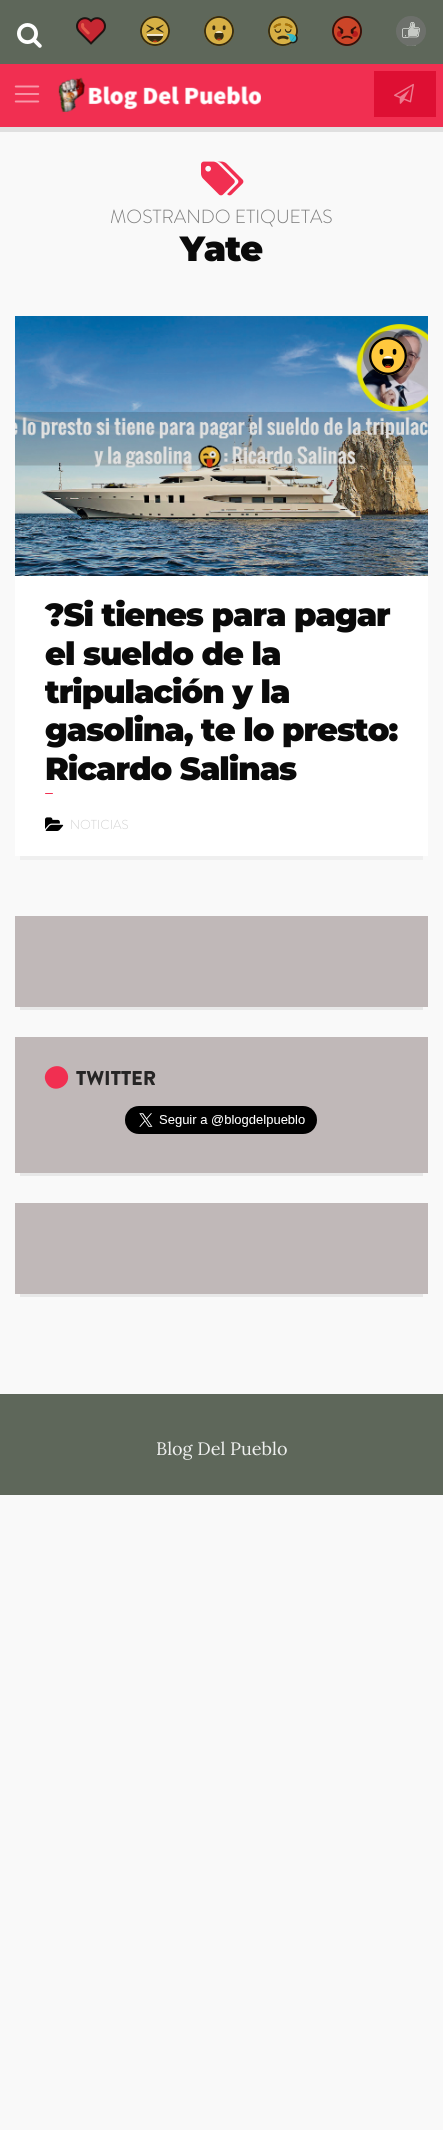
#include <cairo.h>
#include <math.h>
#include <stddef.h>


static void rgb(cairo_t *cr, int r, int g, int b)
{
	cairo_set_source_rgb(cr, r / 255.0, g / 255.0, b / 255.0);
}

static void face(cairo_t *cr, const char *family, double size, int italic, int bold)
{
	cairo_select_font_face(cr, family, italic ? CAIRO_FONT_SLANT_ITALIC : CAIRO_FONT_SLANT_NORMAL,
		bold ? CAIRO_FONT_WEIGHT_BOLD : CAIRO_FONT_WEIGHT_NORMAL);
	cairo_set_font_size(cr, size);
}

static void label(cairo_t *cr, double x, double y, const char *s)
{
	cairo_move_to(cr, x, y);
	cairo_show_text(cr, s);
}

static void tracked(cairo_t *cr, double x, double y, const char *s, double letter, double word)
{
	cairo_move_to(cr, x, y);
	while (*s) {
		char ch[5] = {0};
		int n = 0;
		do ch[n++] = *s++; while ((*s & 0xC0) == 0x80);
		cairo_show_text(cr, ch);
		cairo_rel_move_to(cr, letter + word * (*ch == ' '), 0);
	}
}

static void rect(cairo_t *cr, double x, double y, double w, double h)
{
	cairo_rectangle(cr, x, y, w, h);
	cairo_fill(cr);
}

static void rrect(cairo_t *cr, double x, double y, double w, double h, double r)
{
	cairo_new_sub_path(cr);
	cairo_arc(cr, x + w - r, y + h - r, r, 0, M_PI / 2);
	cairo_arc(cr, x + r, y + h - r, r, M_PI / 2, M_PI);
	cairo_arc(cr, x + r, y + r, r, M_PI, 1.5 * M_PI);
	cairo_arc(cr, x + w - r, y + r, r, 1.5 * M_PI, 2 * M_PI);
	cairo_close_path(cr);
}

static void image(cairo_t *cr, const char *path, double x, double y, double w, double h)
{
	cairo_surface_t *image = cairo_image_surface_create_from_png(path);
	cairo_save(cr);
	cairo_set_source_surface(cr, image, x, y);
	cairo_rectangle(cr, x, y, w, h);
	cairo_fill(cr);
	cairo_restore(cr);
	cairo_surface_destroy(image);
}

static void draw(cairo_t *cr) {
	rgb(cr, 249, 249, 249);
	cairo_paint(cr);
	rgb(cr, 94, 103, 90);
	rect(cr, 0, 0, 443, 64);
	image(cr, "image0.png", 17, 23, 25, 25);
	image(cr, "image1.png", 76, 17, 30, 28);
	image(cr, "image2.png", 140, 16, 30, 30);
	image(cr, "image3.png", 204, 16, 30, 30);
	image(cr, "image4.png", 268, 16, 30, 30);
	image(cr, "image5.png", 332, 16, 30, 30);
	image(cr, "image6.png", 396, 16, 30, 30);
	rgb(cr, 224, 224, 224);
	rect(cr, 0, 127, 443, 5);
	rgb(cr, 241, 47, 81);
	rect(cr, 0, 64, 443, 63);
	image(cr, "image7.png", 14, 85, 26, 18);
	image(cr, "image8.png", 58, 77, 203, 35);
	rgb(cr, 222, 15, 51);
	rect(cr, 374, 71, 62, 46);
	image(cr, "image9.png", 394, 83, 20, 21);
	image(cr, "image10.png", 201, 161, 43, 35);
	face(cr, "Brandon Grotesque Light", 19, 0, 0);
	rgb(cr, 125, 125, 125);
	label(cr, 110, 223, "MOSTRANDO ETIQUETAS");
	face(cr, "Montserrat Thin", 35, 0, 0);
	rgb(cr, 10, 10, 10);
	tracked(cr, 180, 261, "Yate", -1, 0);
	rgb(cr, 239, 239, 239);
	rect(cr, 20, 856, 403, 4);
	rgb(cr, 255, 255, 255);
	rect(cr, 15, 576, 413, 280);
	image(cr, "image11.png", 15, 316, 413, 260);
	cairo_set_source_rgba(cr, 0, 0, 0, 0.3);
	cairo_arc(cr, 388, 356, 25, 0, 2 * M_PI);
	cairo_fill(cr);
	image(cr, "image12.png", 369, 337, 38, 38);
	face(cr, "Montserrat Thin", 32, 0, 0);
	rgb(cr, 10, 10, 10);
	tracked(cr, 45, 626, "?Si tienes para pagar", -1, 0);
	tracked(cr, 45, 665, "el sueldo de la", -1, 0);
	tracked(cr, 45, 703, "tripulación y la", -1, 0);
	tracked(cr, 45, 741, "gasolina, te lo presto:", -1, 0);
	tracked(cr, 45, 780, "Ricardo Salinas", -1, 0);
	rgb(cr, 241, 47, 81);
	rrect(cr, 45, 793, 8, 1, 0.5);
	cairo_fill(cr);
	image(cr, "image13.png", 45, 817, 19, 14);
	face(cr, "Brandon Grotesque Light", 13, 0, 0);
	rgb(cr, 209, 209, 209);
	label(cr, 70, 829, "NOTICIAS");
	rgb(cr, 232, 232, 232);
	rect(cr, 20, 1007, 403, 3);
	rgb(cr, 192, 184, 184);
	rect(cr, 15, 916, 413, 91);
	rgb(cr, 232, 232, 232);
	rect(cr, 20, 1173, 403, 3);
	rgb(cr, 192, 184, 184);
	rect(cr, 15, 1037, 413, 136);
	rgb(cr, 241, 47, 81);
	cairo_new_path(cr);
	cairo_move_to(cr, 66.5, 1071.5);
	cairo_curve_to(cr, 74, 1084.5, 54, 1096, 46.5, 1083);
	cairo_curve_to(cr, 39, 1070.5, 58.5, 1059, 66.5, 1071.5);
	cairo_close_path(cr);
	cairo_fill(cr);
	face(cr, "Brandon Grotesque Black", 20, 0, 0);
	rgb(cr, 38, 37, 37);
	label(cr, 76, 1085, "TWITTER");
	image(cr, "image14.png", 125, 1106, 192, 28);
	rgb(cr, 232, 232, 232);
	rect(cr, 20, 1294, 403, 3);
	rgb(cr, 192, 184, 184);
	rect(cr, 15, 1203, 413, 91);
	rgb(cr, 94, 103, 90);
	rect(cr, 0, 1394, 443, 101);
	face(cr, "Lora", 18, 0, 0);
	rgb(cr, 239, 240, 239);
	label(cr, 156, 1455, "Blog Del Pueblo");
}

int main(void) {
	cairo_surface_t *surface = cairo_image_surface_create(CAIRO_FORMAT_RGB24, 443, 2130);
	cairo_t *cr = cairo_create(surface);
	cairo_font_options_t *options = cairo_font_options_create();
	cairo_font_options_set_hint_metrics(options, CAIRO_HINT_METRICS_OFF);
	cairo_font_options_set_hint_style(options, CAIRO_HINT_STYLE_NONE);
	cairo_set_font_options(cr, options);
	cairo_set_miter_limit(cr, 4);
	draw(cr);
	cairo_surface_write_to_png(surface, "render.png");
	cairo_font_options_destroy(options);
	cairo_destroy(cr);
	cairo_surface_destroy(surface);
	return 0;
}
